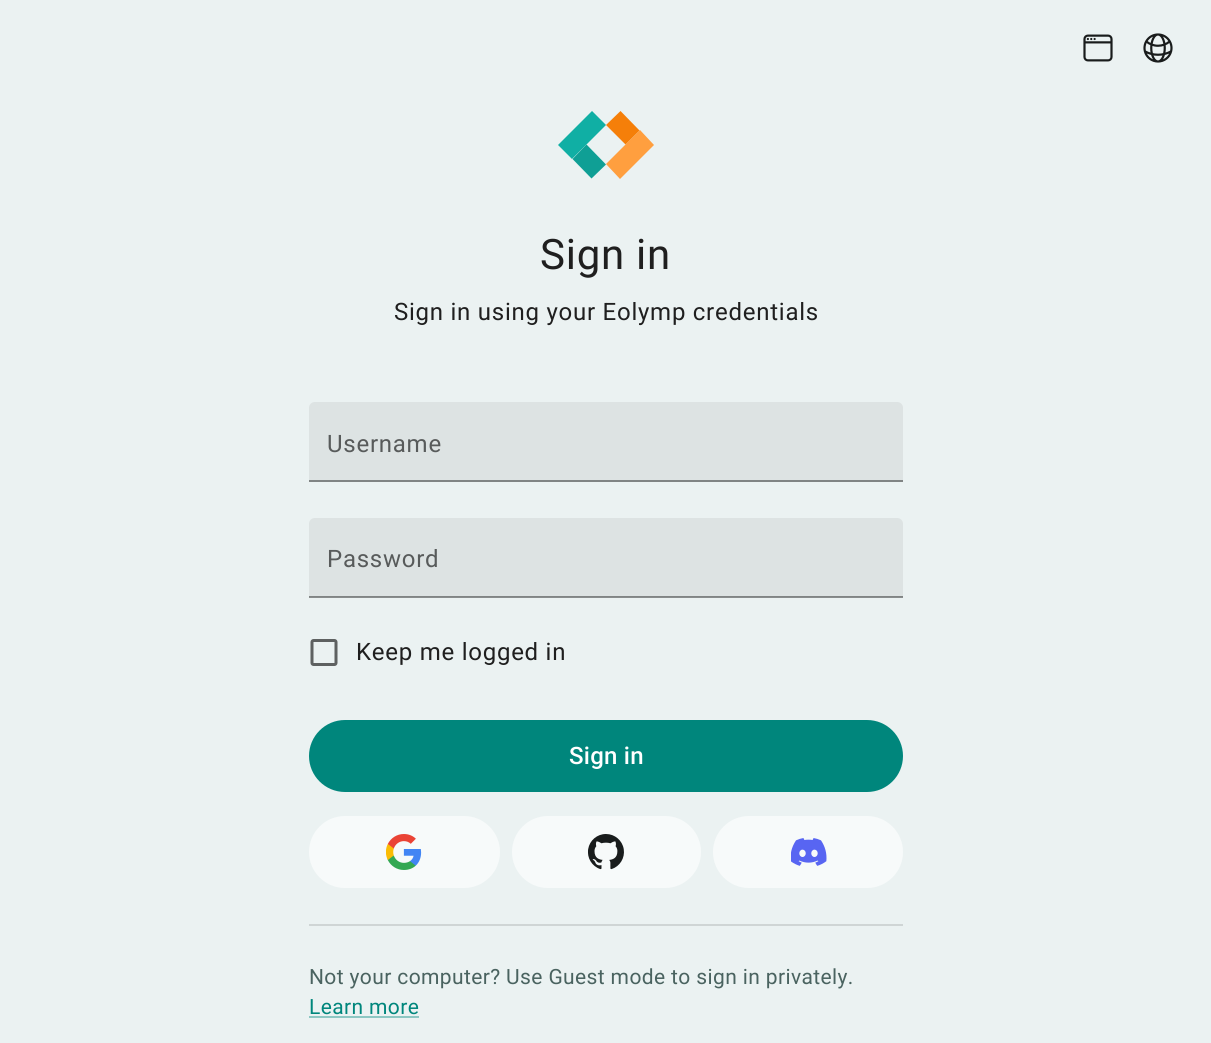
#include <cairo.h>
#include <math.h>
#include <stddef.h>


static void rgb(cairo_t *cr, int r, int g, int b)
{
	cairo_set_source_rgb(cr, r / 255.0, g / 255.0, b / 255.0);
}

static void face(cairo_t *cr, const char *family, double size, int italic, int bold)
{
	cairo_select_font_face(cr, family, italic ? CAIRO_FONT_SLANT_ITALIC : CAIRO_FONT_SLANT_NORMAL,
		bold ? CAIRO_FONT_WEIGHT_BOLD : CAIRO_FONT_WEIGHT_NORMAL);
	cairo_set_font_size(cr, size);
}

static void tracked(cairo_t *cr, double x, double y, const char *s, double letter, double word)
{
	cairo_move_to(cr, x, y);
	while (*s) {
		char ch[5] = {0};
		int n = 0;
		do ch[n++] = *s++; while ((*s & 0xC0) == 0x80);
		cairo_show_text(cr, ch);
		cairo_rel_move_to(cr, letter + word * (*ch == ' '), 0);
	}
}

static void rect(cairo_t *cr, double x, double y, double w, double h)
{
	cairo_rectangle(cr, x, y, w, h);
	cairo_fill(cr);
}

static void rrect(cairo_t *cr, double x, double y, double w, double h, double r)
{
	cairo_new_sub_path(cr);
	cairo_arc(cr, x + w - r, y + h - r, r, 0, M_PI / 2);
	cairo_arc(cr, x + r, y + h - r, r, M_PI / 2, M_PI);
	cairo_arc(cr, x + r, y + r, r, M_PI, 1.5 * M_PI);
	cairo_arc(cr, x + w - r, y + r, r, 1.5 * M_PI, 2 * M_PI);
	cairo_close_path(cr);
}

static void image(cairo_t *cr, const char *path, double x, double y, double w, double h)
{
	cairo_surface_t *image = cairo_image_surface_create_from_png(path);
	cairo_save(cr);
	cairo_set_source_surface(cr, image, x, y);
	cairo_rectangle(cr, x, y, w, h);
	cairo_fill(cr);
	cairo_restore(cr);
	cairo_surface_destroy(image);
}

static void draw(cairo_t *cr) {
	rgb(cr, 235, 242, 242);
	cairo_paint(cr);
	rgb(cr, 136, 140, 140);
	rect(cr, 309, 597, 594, 1);
	image(cr, "image0.png", 1083, 34, 30, 28);
	image(cr, "image1.png", 1143, 33, 30, 30);
	rgb(cr, 16, 175, 164);
	cairo_new_path(cr);
	cairo_move_to(cr, 606, 125);
	cairo_line_to(cr, 572, 159);
	cairo_line_to(cr, 558, 145);
	cairo_line_to(cr, 592, 111);
	cairo_close_path(cr);
	cairo_fill(cr);
	rgb(cr, 15, 159, 149);
	cairo_new_path(cr);
	cairo_move_to(cr, 586.5, 144.5);
	cairo_line_to(cr, 572.5, 159);
	cairo_line_to(cr, 591.5, 178.5);
	cairo_line_to(cr, 606, 164.5);
	cairo_close_path(cr);
	cairo_fill(cr);
	rgb(cr, 255, 159, 63);
	cairo_new_path(cr);
	cairo_move_to(cr, 654, 145);
	cairo_line_to(cr, 620, 179);
	cairo_line_to(cr, 606, 164);
	cairo_line_to(cr, 640, 130);
	cairo_close_path(cr);
	cairo_fill(cr);
	rgb(cr, 245, 127, 9);
	cairo_new_path(cr);
	cairo_move_to(cr, 620.5, 111);
	cairo_line_to(cr, 606, 125);
	cairo_line_to(cr, 625.5, 144.5);
	cairo_line_to(cr, 639.5, 130.5);
	cairo_close_path(cr);
	cairo_fill(cr);
	face(cr, "Roboto", 42, 0, 0);
	rgb(cr, 31, 31, 31);
	tracked(cr, 540, 269, "Sign in", 0.75, 0);
	face(cr, "Roboto", 24, 0, 0);
	tracked(cr, 394, 320, "Sign in using your Eolymp credentials", 0.75, 0);
	rgb(cr, 221, 227, 227);
	cairo_new_path(cr);
	cairo_move_to(cr, 315, 402);
	cairo_line_to(cr, 897, 402);
	cairo_curve_to(cr, 900.5, 402, 903, 404.5, 903, 408);
	cairo_line_to(cr, 903, 482);
	cairo_line_to(cr, 309, 482);
	cairo_line_to(cr, 309, 408);
	cairo_curve_to(cr, 309, 404.5, 311.5, 402, 315, 402);
	cairo_close_path(cr);
	cairo_fill(cr);
	rgb(cr, 128, 132, 132);
	rect(cr, 309, 480, 594, 2);
	rgb(cr, 88, 91, 91);
	tracked(cr, 327, 452, "Username", 0.75, 0);
	rgb(cr, 221, 227, 227);
	cairo_new_path(cr);
	cairo_move_to(cr, 315, 518);
	cairo_line_to(cr, 897, 518);
	cairo_curve_to(cr, 900.5, 518, 903, 520.5, 903, 524);
	cairo_line_to(cr, 903, 597);
	cairo_line_to(cr, 309, 597);
	cairo_line_to(cr, 309, 524);
	cairo_curve_to(cr, 309, 520.5, 311.5, 518, 315, 518);
	cairo_close_path(cr);
	cairo_fill(cr);
	rgb(cr, 128, 132, 132);
	rect(cr, 309, 596, 594, 1);
	rgb(cr, 88, 91, 91);
	tracked(cr, 327, 567, "Password", 0.75, 0);
	image(cr, "image2.png", 310, 639, 28, 27);
	rgb(cr, 31, 31, 31);
	tracked(cr, 356, 660, "Keep me logged in", 0.75, 0);
	rgb(cr, 0, 134, 124);
	rrect(cr, 309, 720, 594, 72, 36);
	cairo_fill(cr);
	face(cr, "Roboto Medium", 24, 0, 0);
	rgb(cr, 255, 255, 255);
	tracked(cr, 569, 764, "Sign in", 0.25, 0);
	rgb(cr, 247, 250, 250);
	rrect(cr, 309, 816, 191, 72, 36);
	cairo_fill(cr);
	image(cr, "image3.png", 386, 834, 36, 36);
	rrect(cr, 512, 816, 189, 72, 36);
	cairo_fill(cr);
	image(cr, "image4.png", 588, 834, 36, 36);
	rrect(cr, 713, 816, 190, 72, 36);
	cairo_fill(cr);
	image(cr, "image5.png", 791, 838, 36, 28);
	rgb(cr, 207, 213, 213);
	rect(cr, 309, 924, 594, 2);
	face(cr, "Roboto", 21, 0, 0);
	rgb(cr, 74, 99, 96);
	tracked(cr, 309, 984, "Not your computer? Use Guest mode to sign in privately.", 0.38, 0);
	rgb(cr, 0, 134, 124);
	tracked(cr, 309, 1014, "Learn more", 0.38, 0);
	rgb(cr, 141, 199, 195);
	rect(cr, 309, 1016, 110, 2);
}

int main(void) {
	cairo_surface_t *surface = cairo_image_surface_create(CAIRO_FORMAT_RGB24, 1211, 1043);
	cairo_t *cr = cairo_create(surface);
	cairo_font_options_t *options = cairo_font_options_create();
	cairo_font_options_set_hint_metrics(options, CAIRO_HINT_METRICS_OFF);
	cairo_font_options_set_hint_style(options, CAIRO_HINT_STYLE_NONE);
	cairo_set_font_options(cr, options);
	cairo_set_miter_limit(cr, 4);
	draw(cr);
	cairo_surface_write_to_png(surface, "render.png");
	cairo_font_options_destroy(options);
	cairo_destroy(cr);
	cairo_surface_destroy(surface);
	return 0;
}
